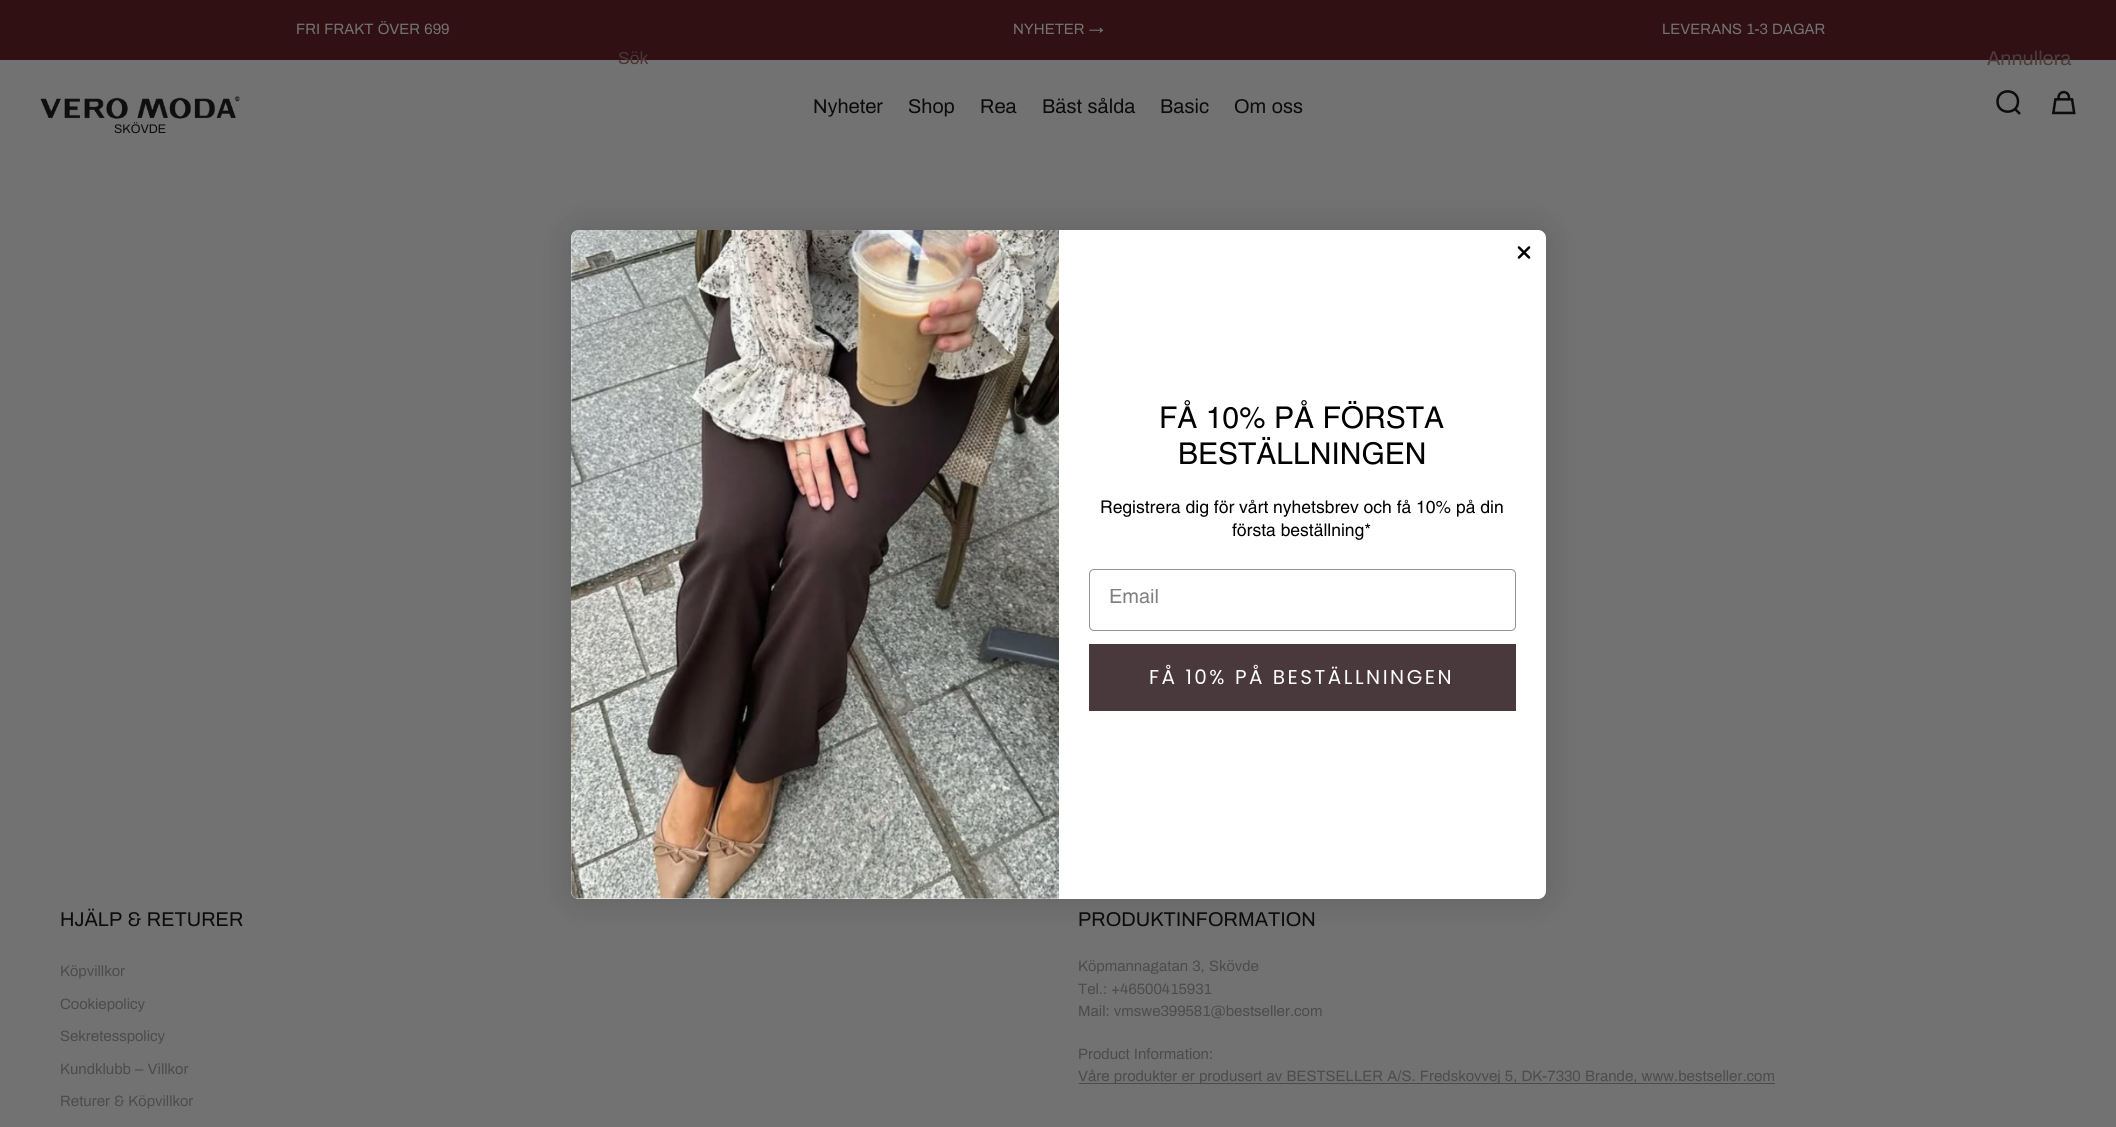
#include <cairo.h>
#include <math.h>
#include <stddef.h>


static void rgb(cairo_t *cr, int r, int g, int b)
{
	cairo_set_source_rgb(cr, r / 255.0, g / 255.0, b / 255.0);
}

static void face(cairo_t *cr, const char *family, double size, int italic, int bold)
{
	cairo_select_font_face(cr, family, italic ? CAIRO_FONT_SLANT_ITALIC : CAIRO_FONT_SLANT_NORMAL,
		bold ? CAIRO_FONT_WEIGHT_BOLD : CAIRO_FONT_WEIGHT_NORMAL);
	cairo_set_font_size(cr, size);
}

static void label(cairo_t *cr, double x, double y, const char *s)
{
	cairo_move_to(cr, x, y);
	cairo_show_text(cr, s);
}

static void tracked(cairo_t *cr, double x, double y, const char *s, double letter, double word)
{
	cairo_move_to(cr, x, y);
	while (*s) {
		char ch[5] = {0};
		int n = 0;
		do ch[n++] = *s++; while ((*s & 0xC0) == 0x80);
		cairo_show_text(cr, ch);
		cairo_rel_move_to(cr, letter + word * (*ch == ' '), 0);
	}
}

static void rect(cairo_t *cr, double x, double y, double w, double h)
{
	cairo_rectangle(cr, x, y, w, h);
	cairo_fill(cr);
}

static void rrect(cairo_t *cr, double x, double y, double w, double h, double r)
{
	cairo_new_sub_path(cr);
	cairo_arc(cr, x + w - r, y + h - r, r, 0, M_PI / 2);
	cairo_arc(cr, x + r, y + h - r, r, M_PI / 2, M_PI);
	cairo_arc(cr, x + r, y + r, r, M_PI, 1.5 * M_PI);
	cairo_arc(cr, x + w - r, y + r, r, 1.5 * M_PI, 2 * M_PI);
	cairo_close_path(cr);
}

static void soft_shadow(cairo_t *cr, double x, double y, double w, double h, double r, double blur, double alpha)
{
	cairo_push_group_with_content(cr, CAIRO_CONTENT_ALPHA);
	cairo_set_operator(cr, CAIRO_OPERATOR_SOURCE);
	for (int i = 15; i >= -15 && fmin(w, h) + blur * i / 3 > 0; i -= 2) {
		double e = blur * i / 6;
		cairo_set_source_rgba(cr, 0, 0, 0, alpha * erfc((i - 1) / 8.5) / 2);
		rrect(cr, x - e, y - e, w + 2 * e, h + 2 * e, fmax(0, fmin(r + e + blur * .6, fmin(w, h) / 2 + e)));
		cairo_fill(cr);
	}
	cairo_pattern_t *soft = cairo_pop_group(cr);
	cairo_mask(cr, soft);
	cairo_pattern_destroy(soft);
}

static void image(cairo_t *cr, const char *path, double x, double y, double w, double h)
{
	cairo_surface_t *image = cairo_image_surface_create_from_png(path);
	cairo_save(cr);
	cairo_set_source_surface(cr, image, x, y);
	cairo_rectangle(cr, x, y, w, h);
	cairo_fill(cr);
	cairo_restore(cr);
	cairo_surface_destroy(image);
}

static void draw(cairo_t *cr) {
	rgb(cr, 114, 114, 114);
	cairo_paint(cr);
	rgb(cr, 48, 16, 18);
	rect(cr, 0, 0, 2116, 60);
	face(cr, "Archivo", 15, 0, 0);
	rgb(cr, 114, 114, 114);
	label(cr, 296, 34, "FRI FRAKT ÖVER 699");
	label(cr, 1013, 34, "NYHETER →");
	label(cr, 1662, 34, "LEVERANS 1-3 DAGAR");
	face(cr, "Archivo", 17.5, 0, 0);
	rgb(cr, 73, 52, 54);
	label(cr, 618, 64, "Sök");
	face(cr, "Archivo", 20, 0, 0);
	rgb(cr, 78, 60, 61);
	label(cr, 1987, 65, "Annullera");
	rgb(cr, 12, 12, 12);
	label(cr, 813, 113, "Nyheter");
	label(cr, 908, 113, "Shop");
	label(cr, 980, 113, "Rea");
	label(cr, 1042, 113, "Bäst sålda");
	label(cr, 1160, 113, "Basic");
	label(cr, 1234, 113, "Om oss");
	cairo_save(cr);
	cairo_new_path(cr);
	cairo_move_to(cr, 1996, 90);
	cairo_line_to(cr, 2021, 90);
	cairo_line_to(cr, 2021, 115);
	cairo_line_to(cr, 1996, 115);
	cairo_close_path(cr);
	cairo_clip(cr);
	cairo_new_path(cr);
	cairo_move_to(cr, 1997.5, 101.5);
	cairo_curve_to(cr, 1997.5, 115, 2018, 115, 2018, 101.5);
	cairo_curve_to(cr, 2018, 88, 1997.5, 88, 1997.5, 101.5);
	cairo_close_path(cr);
	cairo_move_to(cr, 2015, 109);
	cairo_line_to(cr, 2020, 114);
	cairo_set_line_width(cr, 2.5);
	cairo_stroke(cr);
	cairo_restore(cr);
	image(cr, "image0.png", 2051, 90, 25, 25);
	image(cr, "image1.png", 40, 96, 200, 23);
	face(cr, "Archivo", 12.5, 0, 0);
	label(cr, 114, 133, "SKÖVDE");
	rgb(cr, 0, 0, 0);
	soft_shadow(cr, 571, 230, 975, 669, 8, 19, 0.15);
	rgb(cr, 255, 255, 255);
	rrect(cr, 571, 230, 975, 669, 8);
	cairo_fill(cr);
	cairo_new_path(cr);
	cairo_move_to(cr, 1519, 247.5);
	cairo_line_to(cr, 1529, 257.5);
	cairo_move_to(cr, 1519, 257.5);
	cairo_line_to(cr, 1529, 247.5);
	cairo_close_path(cr);
	rgb(cr, 0, 0, 0);
	cairo_set_line_width(cr, 2.5);
	cairo_set_line_cap(cr, CAIRO_LINE_CAP_ROUND);
	cairo_set_line_join(cr, CAIRO_LINE_JOIN_ROUND);
	cairo_stroke(cr);
	image(cr, "image2.png", 571, 230, 488, 669);
	face(cr, "Helvetica", 30, 0, 0);
	label(cr, 1159, 428, "FÅ 10% PÅ FÖRSTA");
	label(cr, 1178, 464, "BESTÄLLNINGEN");
	face(cr, "Helvetica", 17.5, 0, 0);
	label(cr, 1100, 513, "Registrera dig för vårt nyhetsbrev och få 10% på din");
	label(cr, 1232, 536, "första beställning*");
	rrect(cr, 1089.5, 569.5, 426, 61, 4.5);
	rgb(cr, 148, 149, 150);
	cairo_set_line_width(cr, 1);
	cairo_set_line_cap(cr, CAIRO_LINE_CAP_BUTT);
	cairo_set_line_join(cr, CAIRO_LINE_JOIN_MITER);
	cairo_stroke(cr);
	cairo_save(cr);
	cairo_rectangle(cr, 1110, 589, 405, 24);
	cairo_clip(cr);
	face(cr, "Helvetica", 20, 0, 0);
	rgb(cr, 128, 128, 128);
	label(cr, 1109, 603, "Email");
	cairo_restore(cr);
	rgb(cr, 73, 56, 60);
	rect(cr, 1089, 644, 427, 67);
	face(cr, "Poppins", 20, 0, 0);
	rgb(cr, 255, 255, 255);
	tracked(cr, 1149, 684, "FÅ 10% PÅ BESTÄLLNINGEN", 2.5, 0);
	face(cr, "Archivo", 20, 0, 0);
	rgb(cr, 12, 12, 12);
	label(cr, 60, 926, "HJÄLP & RETURER");
	face(cr, "Archivo", 15, 0, 0);
	rgb(cr, 76, 76, 76);
	label(cr, 60, 976, "Köpvillkor");
	label(cr, 60, 1009, "Cookiepolicy");
	label(cr, 60, 1041, "Sekretesspolicy");
	label(cr, 60, 1074, "Kundklubb – Villkor");
	label(cr, 60, 1106, "Returer & Köpvillkor");
	face(cr, "Archivo", 20, 0, 0);
	rgb(cr, 12, 12, 12);
	label(cr, 1078, 926, "PRODUKTINFORMATION");
	face(cr, "Archivo", 15, 0, 0);
	rgb(cr, 76, 76, 76);
	label(cr, 1078, 971, "Köpmannagatan 3, Skövde");
	label(cr, 1078, 994, "Tel.: +46500415931");
	label(cr, 1078, 1016, "Mail: vmswe399581@bestseller.com");
	label(cr, 1078, 1059, "Product Information:");
	rect(cr, 1079, 1083, 696, 1);
	label(cr, 1078, 1081, "Våre produkter er produsert av BESTSELLER A/S. Fredskovvej 5, DK-7330 Brande, www.bestseller.com");
}

int main(void) {
	cairo_surface_t *surface = cairo_image_surface_create(CAIRO_FORMAT_RGB24, 2116, 1127);
	cairo_t *cr = cairo_create(surface);
	cairo_font_options_t *options = cairo_font_options_create();
	cairo_font_options_set_hint_metrics(options, CAIRO_HINT_METRICS_OFF);
	cairo_font_options_set_hint_style(options, CAIRO_HINT_STYLE_NONE);
	cairo_set_font_options(cr, options);
	cairo_set_miter_limit(cr, 4);
	draw(cr);
	cairo_surface_write_to_png(surface, "render.png");
	cairo_font_options_destroy(options);
	cairo_destroy(cr);
	cairo_surface_destroy(surface);
	return 0;
}
